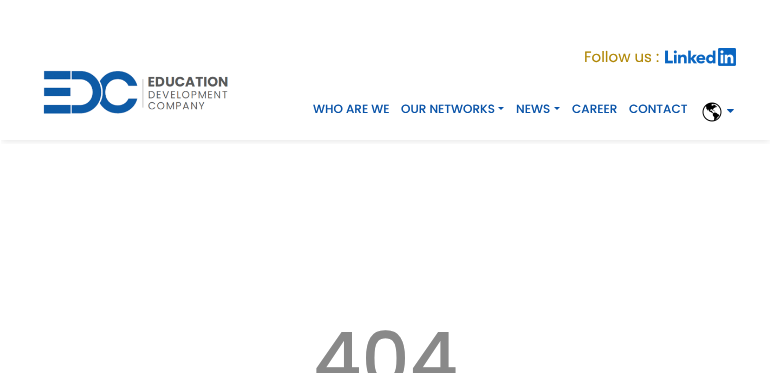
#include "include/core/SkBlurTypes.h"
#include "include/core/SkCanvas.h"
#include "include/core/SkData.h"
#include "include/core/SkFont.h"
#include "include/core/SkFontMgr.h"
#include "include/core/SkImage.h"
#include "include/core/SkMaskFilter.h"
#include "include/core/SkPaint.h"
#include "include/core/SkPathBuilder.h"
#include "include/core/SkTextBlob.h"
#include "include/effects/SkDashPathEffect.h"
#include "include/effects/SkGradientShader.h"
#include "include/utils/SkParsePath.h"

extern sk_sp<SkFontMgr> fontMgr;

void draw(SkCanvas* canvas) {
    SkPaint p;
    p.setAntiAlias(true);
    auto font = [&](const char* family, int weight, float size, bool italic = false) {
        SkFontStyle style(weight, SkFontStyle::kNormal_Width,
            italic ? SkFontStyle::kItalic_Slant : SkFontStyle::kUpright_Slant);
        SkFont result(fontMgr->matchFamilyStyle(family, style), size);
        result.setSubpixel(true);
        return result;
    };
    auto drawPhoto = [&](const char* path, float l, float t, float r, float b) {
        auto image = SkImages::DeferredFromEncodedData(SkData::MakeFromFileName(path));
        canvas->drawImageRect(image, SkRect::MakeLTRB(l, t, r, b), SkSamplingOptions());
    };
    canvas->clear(0xFFFFFFFF);
    canvas->save();
    canvas->clipRect(SkRect::MakeLTRB(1, 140, 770, 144));
    p.setColor(0x1A000000);
    p.setMaskFilter(SkMaskFilter::MakeBlur(kNormal_SkBlurStyle, 3));
    canvas->drawRect(SkRect::MakeLTRB(2, 5, 769, 141), p);
    p.setMaskFilter(nullptr);
    canvas->restore();
    auto font1 = font("Poppins", 400, 15);
    p.setColor(0xFFB18807);
    canvas->drawString("Follow us :", 584, 62, font1, p);
    drawPhoto("media/1.png", 665, 48, 736, 66);
    drawPhoto("media/2.png", 43, 70, 228, 114);
    auto font2 = font("Poppins", 500, 12);
    p.setColor(0xFF0A54A9);
    canvas->drawString("WHO ARE WE", 313, 113, font2, p);
    canvas->drawString("OUR NETWORKS", 401, 113, font2, p);
    canvas->drawPath(SkPathBuilder().moveTo(498, 107).lineTo(504, 107).lineTo(501, 110).close().detach(), p);
    canvas->drawString("NEWS", 516, 113, font2, p);
    canvas->drawPath(SkPathBuilder().moveTo(554, 107).lineTo(560, 107).lineTo(557, 110).close().detach(), p);
    canvas->drawString("CAREER", 572, 113, font2, p);
    canvas->drawString("CONTACT", 629, 113, font2, p);
    drawPhoto("media/3.png", 702, 102, 722, 122);
    drawPhoto("media/4.png", 727, 109, 734, 113);
    auto font3 = font("Poppins", 500, 75);
    p.setColor(0xFF898989);
    canvas->drawString("404", 313, 386, font3, p);
}
